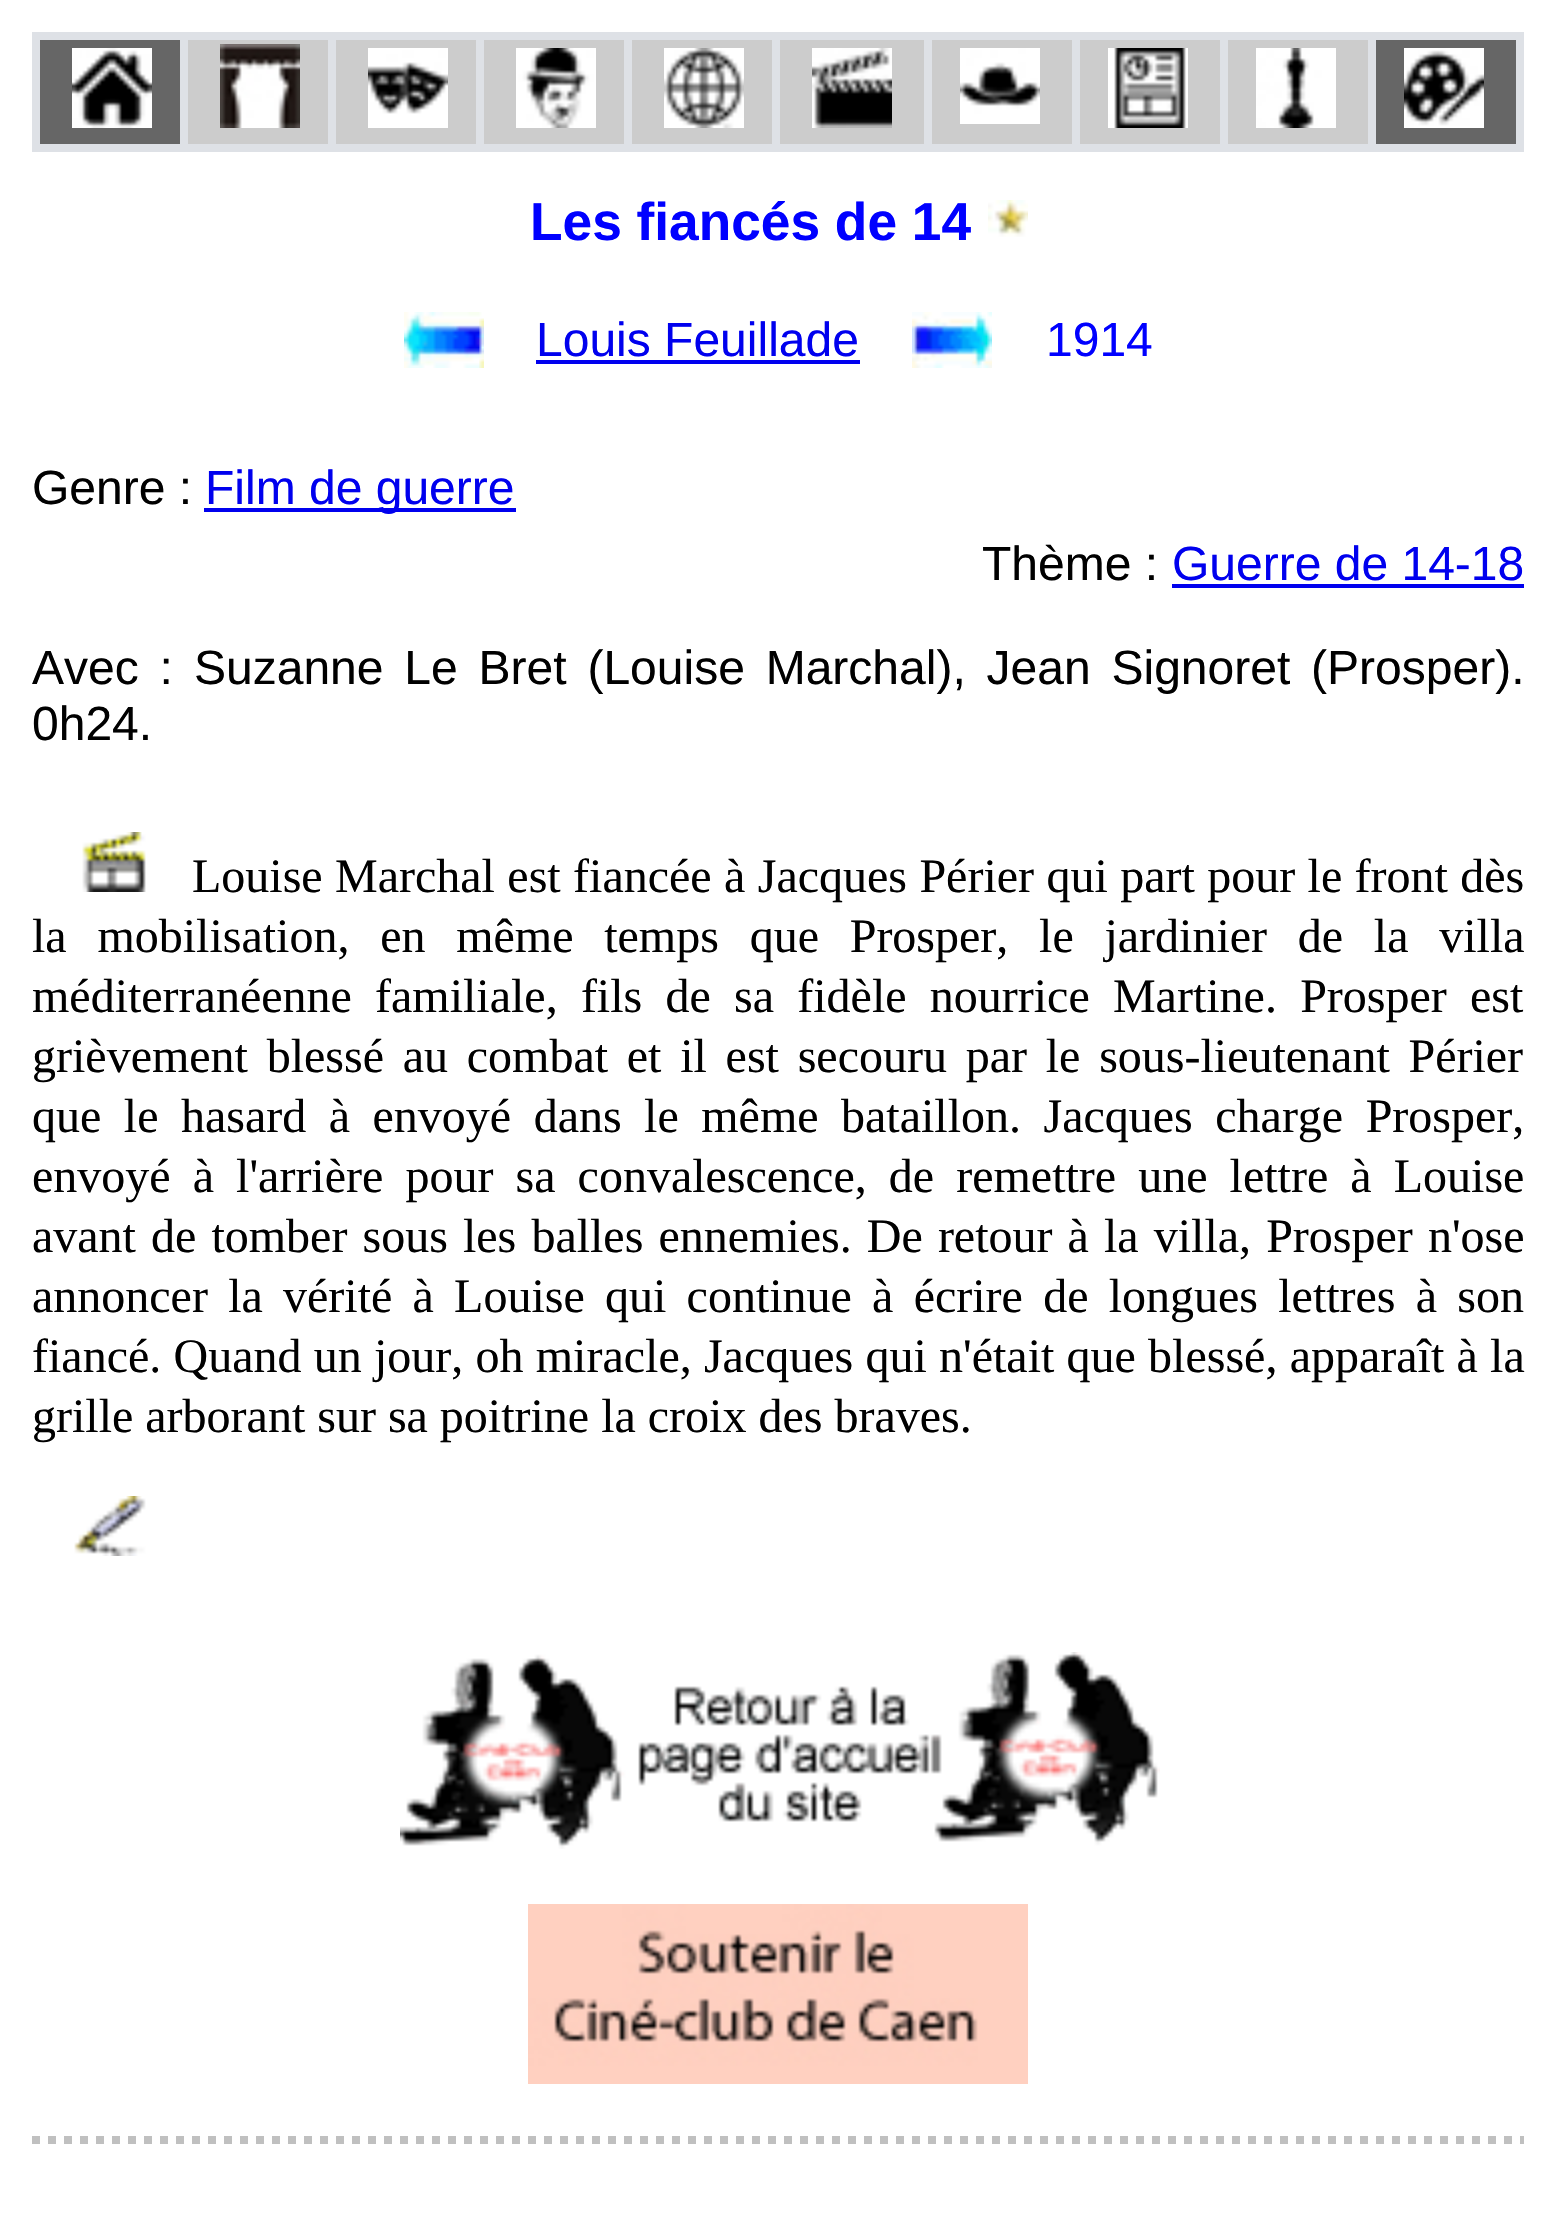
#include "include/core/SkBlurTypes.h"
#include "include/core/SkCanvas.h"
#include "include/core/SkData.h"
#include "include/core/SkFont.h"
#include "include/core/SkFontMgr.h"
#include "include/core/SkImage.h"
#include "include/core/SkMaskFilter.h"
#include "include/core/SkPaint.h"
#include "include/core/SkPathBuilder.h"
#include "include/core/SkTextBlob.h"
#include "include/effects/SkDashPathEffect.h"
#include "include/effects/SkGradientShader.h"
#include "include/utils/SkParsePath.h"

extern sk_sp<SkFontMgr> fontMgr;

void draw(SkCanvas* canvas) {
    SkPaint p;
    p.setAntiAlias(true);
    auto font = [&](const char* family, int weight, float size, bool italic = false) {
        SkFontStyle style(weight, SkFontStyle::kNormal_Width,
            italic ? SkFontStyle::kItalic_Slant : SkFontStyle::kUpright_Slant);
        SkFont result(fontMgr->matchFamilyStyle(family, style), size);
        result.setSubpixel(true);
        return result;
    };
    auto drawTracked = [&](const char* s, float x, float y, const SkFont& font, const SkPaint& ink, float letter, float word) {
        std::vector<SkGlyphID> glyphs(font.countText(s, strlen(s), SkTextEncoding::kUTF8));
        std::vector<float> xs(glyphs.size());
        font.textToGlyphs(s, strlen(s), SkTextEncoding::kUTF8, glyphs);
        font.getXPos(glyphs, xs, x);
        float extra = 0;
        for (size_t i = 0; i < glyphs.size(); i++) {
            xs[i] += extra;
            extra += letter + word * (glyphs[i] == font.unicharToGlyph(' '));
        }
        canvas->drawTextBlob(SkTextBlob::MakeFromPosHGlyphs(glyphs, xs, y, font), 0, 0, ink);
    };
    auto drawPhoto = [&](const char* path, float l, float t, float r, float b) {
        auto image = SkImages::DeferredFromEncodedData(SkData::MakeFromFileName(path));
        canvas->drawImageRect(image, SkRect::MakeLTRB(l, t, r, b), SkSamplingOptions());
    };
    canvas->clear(0xFFFFFFFF);
    p.setColor(0xFFDEE1E6);
    canvas->drawRect(SkRect::MakeLTRB(32, 32, 1524, 152), p);
    p.setColor(0xFF666666);
    canvas->drawRect(SkRect::MakeLTRB(40, 40, 180, 144), p);
    drawPhoto("media/1.png", 72, 48, 152, 128);
    p.setColor(0xFFCCCCCC);
    canvas->drawRect(SkRect::MakeLTRB(188, 40, 328, 144), p);
    drawPhoto("media/2.png", 220, 44, 300, 128);
    canvas->drawRect(SkRect::MakeLTRB(336, 40, 476, 144), p);
    drawPhoto("media/3.png", 368, 48, 448, 128);
    canvas->drawRect(SkRect::MakeLTRB(484, 40, 624, 144), p);
    drawPhoto("media/4.png", 516, 48, 596, 128);
    canvas->drawRect(SkRect::MakeLTRB(632, 40, 772, 144), p);
    drawPhoto("media/5.png", 664, 48, 744, 128);
    canvas->drawRect(SkRect::MakeLTRB(780, 40, 924, 144), p);
    drawPhoto("media/6.png", 812, 48, 892, 128);
    canvas->drawRect(SkRect::MakeLTRB(932, 40, 1072, 144), p);
    drawPhoto("media/7.png", 960, 48, 1040, 124);
    canvas->drawRect(SkRect::MakeLTRB(1080, 40, 1220, 144), p);
    drawPhoto("media/8.png", 1108, 48, 1188, 128);
    canvas->drawRect(SkRect::MakeLTRB(1228, 40, 1368, 144), p);
    drawPhoto("media/9.png", 1256, 48, 1336, 128);
    p.setColor(0xFF666666);
    canvas->drawRect(SkRect::MakeLTRB(1376, 40, 1516, 144), p);
    drawPhoto("media/10.png", 1404, 48, 1484, 128);
    auto font1 = font("Liberation Sans", 700, 53.25f);
    p.setColor(0xFF0000FF);
    canvas->drawString("Les fiancés de 14", 530, 240, font1, p);
    drawPhoto("media/11.png", 988, 200, 1028, 237);
    drawPhoto("media/12.png", 404, 312, 484, 368);
    auto font2 = font("Liberation Sans", 400, 48);
    p.setColor(0xFF0000EE);
    canvas->drawString("Louis Feuillade", 536, 356, font2, p);
    canvas->drawRect(SkRect::MakeLTRB(536, 360, 860, 364), p);
    drawPhoto("media/13.png", 912, 312, 992, 368);
    p.setColor(0xFF0000FF);
    canvas->drawString("1914", 1046, 356, font2, p);
    p.setColor(0xFF000000);
    canvas->drawString("Genre :", 32, 504, font2, p);
    p.setColor(0xFF0000EE);
    canvas->drawRect(SkRect::MakeLTRB(204, 508, 516, 512), p);
    canvas->drawString("Film de guerre", 205, 504, font2, p);
    p.setColor(0xFF000000);
    canvas->drawString("Thème :", 982, 580, font2, p);
    p.setColor(0xFF0000EE);
    canvas->drawString("Guerre de 14-18", 1172, 580, font2, p);
    canvas->drawRect(SkRect::MakeLTRB(1172, 584, 1524, 588), p);
    p.setColor(0xFF000000);
    drawTracked("Avec :", 32, 684, font2, p, 0, 7.5f);
    drawTracked("Suzanne Le Bret (Louise Marchal), Jean Signoret (Prosper).", 194, 684, font2, p, 0, 7.5f);
    canvas->drawString("0h24.", 32, 740, font2, p);
    drawPhoto("media/14.png", 82, 832, 146, 892);
    auto font3 = font("Liberation Serif", 400, 48);
    drawTracked("Louise Marchal est fiancée à Jacques Périer qui part pour le front dès", 192, 892, font3, p, 0, 0.4f);
    drawTracked("la mobilisation, en même temps que Prosper, le jardinier de la villa", 32, 952, font3, p, 0, 18.75f);
    drawTracked("méditerranéenne familiale, fils de sa fidèle nourrice Martine. Prosper est", 32, 1012, font3, p, 0, 11.25f);
    drawTracked("grièvement blessé au combat et il est secouru par le sous-lieutenant Périer", 32, 1072, font3, p, 0, 6.75f);
    drawTracked("que le hasard à envoyé dans le même bataillon. Jacques charge Prosper,", 32, 1132, font3, p, 0, 10.5f);
    drawTracked("envoyé à l'arrière pour sa convalescence, de remettre une lettre à Louise", 32, 1192, font3, p, 0, 10.1f);
    drawTracked("avant de tomber sous les balles ennemies. De retour à la villa, Prosper n'ose", 32, 1252, font3, p, 0, 3.1f);
    drawTracked("annoncer la vérité à Louise qui continue à écrire de longues lettres à son", 32, 1312, font3, p, 0, 8.25f);
    drawTracked("fiancé. Quand un jour, oh miracle, Jacques qui n'était que blessé, apparaît à la", 32, 1372, font3, p, 0, 0.25f);
    canvas->drawString("grille arborant sur sa poitrine la croix des braves.", 32, 1432, font3, p);
    drawPhoto("media/15.png", 74, 1496, 146, 1556);
    drawPhoto("media/16.png", 400, 1652, 1160, 1849);
    drawPhoto("media/17.png", 528, 1904, 1028, 2084);
    p.setStyle(SkPaint::kStroke_Style);
    p.setStrokeWidth(8);
    p.setColor(0xFFC0C0C0);
    p.setPathEffect(SkDashPathEffect::Make({{8, 8}}, 0));
    canvas->drawPath(SkPathBuilder().moveTo(32, 2140).lineTo(1524, 2140).detach(), p);
    p.setPathEffect(nullptr);
}
